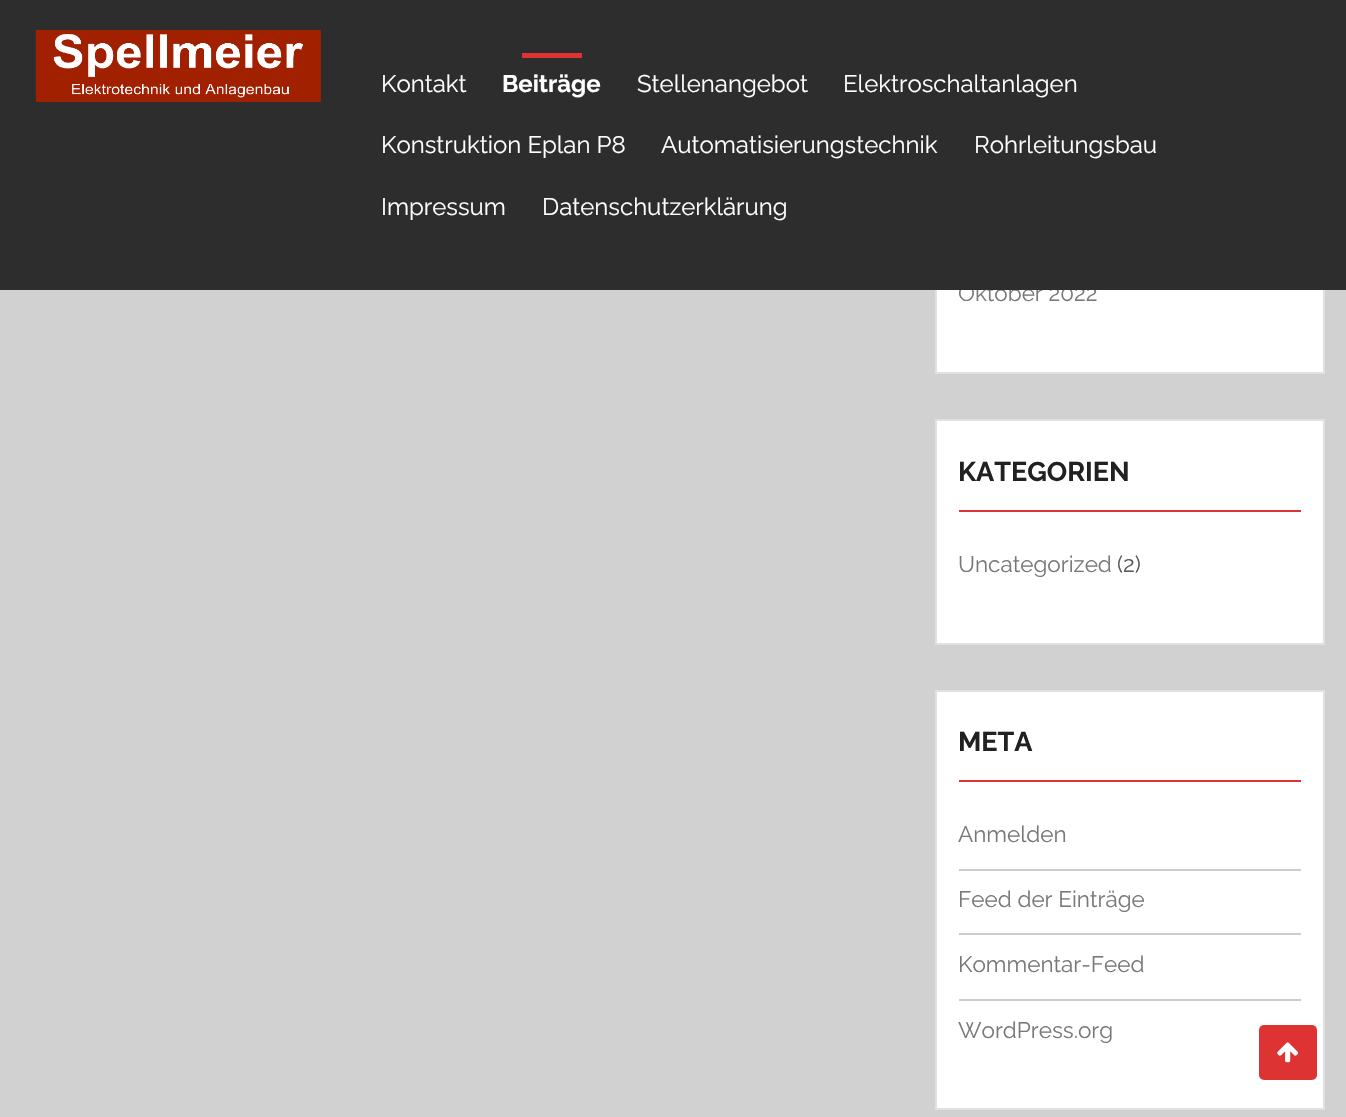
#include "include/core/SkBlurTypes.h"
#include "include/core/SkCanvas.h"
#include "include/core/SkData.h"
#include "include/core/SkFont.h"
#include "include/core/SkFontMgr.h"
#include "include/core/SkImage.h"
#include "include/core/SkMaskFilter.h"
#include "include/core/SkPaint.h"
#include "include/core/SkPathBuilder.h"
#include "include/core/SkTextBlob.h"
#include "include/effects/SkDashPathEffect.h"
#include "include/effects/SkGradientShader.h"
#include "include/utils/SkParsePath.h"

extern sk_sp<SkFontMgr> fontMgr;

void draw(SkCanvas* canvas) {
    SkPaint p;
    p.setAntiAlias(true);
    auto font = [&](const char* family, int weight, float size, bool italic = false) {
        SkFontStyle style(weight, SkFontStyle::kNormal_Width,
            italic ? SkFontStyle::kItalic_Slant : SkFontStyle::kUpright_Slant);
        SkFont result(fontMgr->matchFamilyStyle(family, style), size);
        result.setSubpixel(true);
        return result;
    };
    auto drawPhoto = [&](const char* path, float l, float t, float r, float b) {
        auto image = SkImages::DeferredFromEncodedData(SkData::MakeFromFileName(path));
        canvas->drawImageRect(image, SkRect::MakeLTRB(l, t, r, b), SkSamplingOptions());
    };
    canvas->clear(0xFFD1D1D1);
    p.setColor(0xFFFFFFFF);
    canvas->drawRect(SkRect::MakeLTRB(937, 290, 1323, 372), p);
    p.setStyle(SkPaint::kStroke_Style);
    p.setStrokeWidth(2);
    p.setColor(0xFFE1E1E1);
    canvas->drawRect(SkRect::MakeLTRB(936, 85, 1324, 373), p);
    auto font1 = font("Raleway", 400, 22.5f);
    p.setStyle(SkPaint::kFill_Style);
    p.setColor(0xFF787878);
    canvas->drawString("Oktober 2022", 958, 301, font1, p);
    p.setColor(0xFF2D2D2D);
    canvas->drawRect(SkRect::MakeLTRB(0, 0, 1346, 290), p);
    drawPhoto("media/1.png", 35, 30, 321, 102);
    auto font2 = font("Raleway", 400, 24);
    p.setColor(0xFFFFFFFF);
    canvas->drawString("Kontakt", 381, 92, font2, p);
    p.setColor(0xFFDD3333);
    canvas->drawRect(SkRect::MakeLTRB(522, 53, 582, 58), p);
    auto font3 = font("Raleway", 700, 24);
    p.setColor(0xFFFFFFFF);
    canvas->drawString("Beiträge", 502, 92, font3, p);
    {
        const struct { const char* s; float x, y; } items[] = {
            {"Stellenangebot", 637, 92},
            {"Elektroschaltanlagen", 843, 92},
            {"Konstruktion Eplan P8", 381, 153},
            {"Automatisierungstechnik", 661, 153},
            {"Rohrleitungsbau", 974, 153},
            {"Impressum", 381, 215},
            {"Datenschutzerklärung", 542, 215},
        };
        for (auto [s, x, y] : items) {
            canvas->drawString(s, x, y, font2, p);
        }
    }
    canvas->drawRect(SkRect::MakeLTRB(936, 420, 1324, 644), p);
    p.setStyle(SkPaint::kStroke_Style);
    p.setColor(0xFFE1E1E1);
    canvas->drawRect(SkRect::MakeLTRB(936, 420, 1324, 644), p);
    p.setStyle(SkPaint::kFill_Style);
    p.setColor(0xFFDD3333);
    canvas->drawRect(SkRect::MakeLTRB(959, 510, 1301, 512), p);
    auto font4 = font("Raleway", 700, 27);
    p.setColor(0xFF212121);
    canvas->drawString("KATEGORIEN", 958, 481, font4, p);
    p.setColor(0xFF787878);
    canvas->drawString("Uncategorized", 958, 572, font1, p);
    p.setColor(0xFF5A5A5A);
    canvas->drawString("(2)", 1117, 572, font1, p);
    p.setColor(0xFFFFFFFF);
    canvas->drawRect(SkRect::MakeLTRB(936, 691, 1324, 1109), p);
    p.setStyle(SkPaint::kStroke_Style);
    p.setColor(0xFFE1E1E1);
    canvas->drawRect(SkRect::MakeLTRB(936, 691, 1324, 1109), p);
    p.setStyle(SkPaint::kFill_Style);
    p.setColor(0xFFDD3333);
    canvas->drawRect(SkRect::MakeLTRB(959, 780, 1301, 782), p);
    p.setColor(0xFF212121);
    canvas->drawString("META", 958, 751, font4, p);
    p.setColor(0xFF787878);
    canvas->drawString("Anmelden", 958, 842, font1, p);
    p.setColor(0xFFCCCCCC);
    canvas->drawRect(SkRect::MakeLTRB(959, 869, 1301, 871), p);
    p.setColor(0xFF787878);
    canvas->drawString("Feed der Einträge", 958, 907, font1, p);
    p.setColor(0xFFCCCCCC);
    canvas->drawRect(SkRect::MakeLTRB(959, 933, 1301, 935), p);
    p.setColor(0xFF787878);
    canvas->drawString("Kommentar-Feed", 958, 972, font1, p);
    p.setColor(0xFFCCCCCC);
    canvas->drawRect(SkRect::MakeLTRB(959, 999, 1301, 1001), p);
    p.setColor(0xFF787878);
    canvas->drawString("WordPress.org", 958, 1038, font1, p);
    p.setColor(0xFFDD3333);
    canvas->drawRoundRect(SkRect::MakeLTRB(1259, 1025, 1317, 1080), 5, 5, p);
    drawPhoto("media/2.png", 1277, 1042, 1298, 1063);
}
